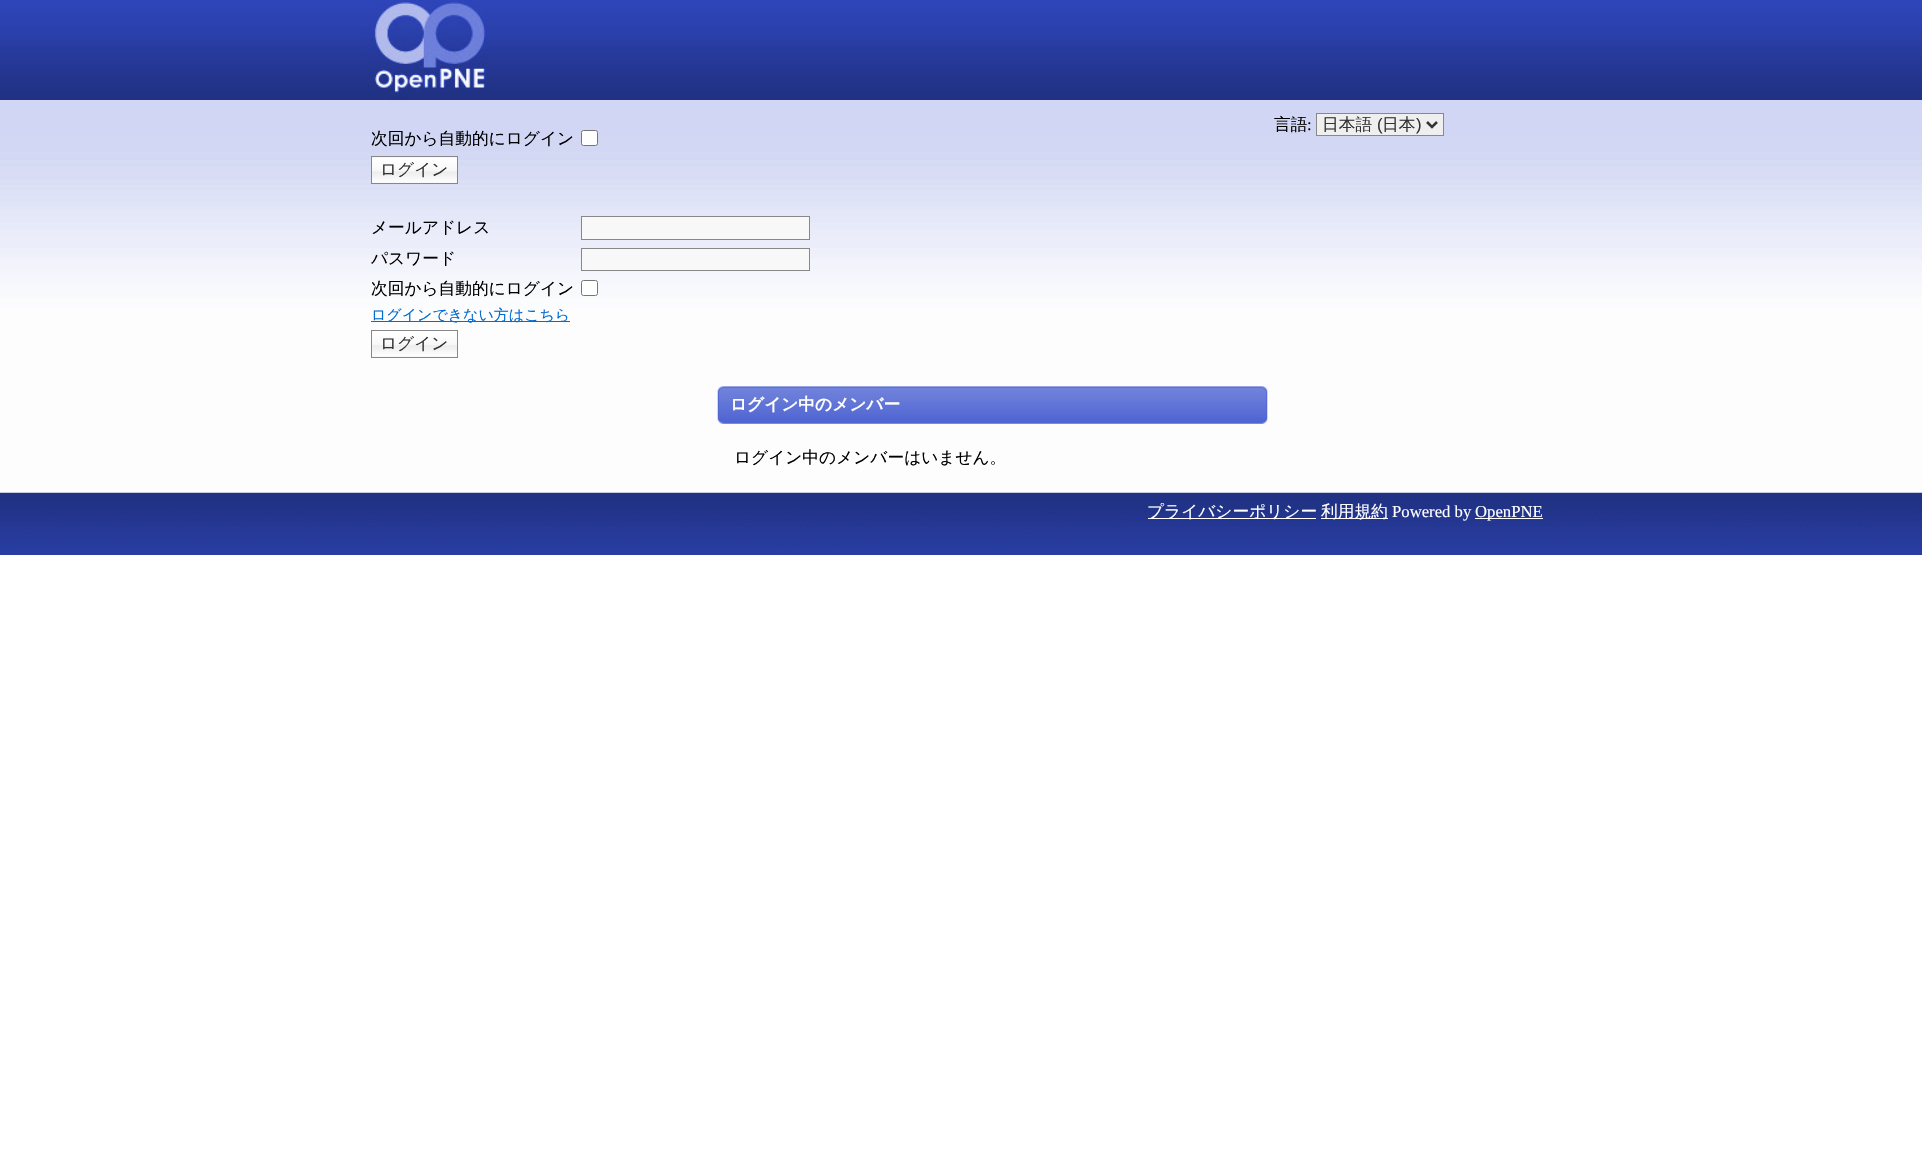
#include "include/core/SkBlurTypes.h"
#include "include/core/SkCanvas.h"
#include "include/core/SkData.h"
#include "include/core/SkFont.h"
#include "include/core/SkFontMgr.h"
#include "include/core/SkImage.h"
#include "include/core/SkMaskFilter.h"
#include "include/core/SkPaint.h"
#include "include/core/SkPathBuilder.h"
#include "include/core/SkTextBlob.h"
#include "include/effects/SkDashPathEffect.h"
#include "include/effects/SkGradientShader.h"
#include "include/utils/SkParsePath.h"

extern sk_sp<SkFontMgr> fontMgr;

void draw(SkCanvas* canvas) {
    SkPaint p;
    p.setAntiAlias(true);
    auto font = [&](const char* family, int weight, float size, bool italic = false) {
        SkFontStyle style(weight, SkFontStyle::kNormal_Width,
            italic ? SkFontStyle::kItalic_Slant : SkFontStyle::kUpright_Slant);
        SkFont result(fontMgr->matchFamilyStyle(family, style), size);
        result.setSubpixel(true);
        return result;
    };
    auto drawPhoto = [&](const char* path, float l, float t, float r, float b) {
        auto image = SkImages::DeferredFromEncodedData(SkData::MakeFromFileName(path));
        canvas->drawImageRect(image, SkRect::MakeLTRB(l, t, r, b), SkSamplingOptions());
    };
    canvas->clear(0xFFFFFFFF);
    drawPhoto("media/1.png", 0, 0, 1922, 100);
    drawPhoto("media/2.png", 367, 0, 488, 100);
    drawPhoto("media/7.png", 0, 492, 1922, 555);
    drawPhoto("media/3.png", 0, 100, 1922, 493);
    auto font1 = font("WenQuanYi Zen Hei", 500, 16.7f);
    p.setColor(0xFF000000);
    canvas->drawString("言語", 1274, 130, font1, p);
    auto font2 = font("Liberation Serif", 400, 16.7f);
    canvas->drawString(":", 1307, 130, font2, p);
    p.setColor(0xFFEFEFEF);
    canvas->drawRect(SkRect::MakeLTRB(1316.5f, 113.5f, 1443.5f, 135.5f), p);
    p.setStyle(SkPaint::kStroke_Style);
    p.setStrokeWidth(1);
    p.setColor(0xFF888888);
    canvas->drawRect(SkRect::MakeLTRB(1316.5f, 113.5f, 1443.5f, 135.5f), p);
    p.setStrokeWidth(2.5f);
    p.setColor(0xFF333333);
    canvas->drawPath(SkPathBuilder().moveTo(1427, 122).lineTo(1432, 127).lineTo(1437, 122).detach(), p);
    p.setStyle(SkPaint::kFill_Style);
    canvas->drawString("日本語", 1322, 130, font1, p);
    auto font3 = font("Liberation Sans", 400, 16.7f);
    canvas->drawString("(", 1377, 130, font3, p);
    canvas->drawString("日本", 1382, 130, font1, p);
    canvas->drawString(")", 1416, 130, font3, p);
    p.setColor(0xFF000000);
    canvas->drawString("次回から自動的にログイン", 371, 144, font1, p);
    p.setColor(0xFFFFFFFF);
    canvas->drawRoundRect(SkRect::MakeLTRB(581.5f, 130.5f, 597.5f, 145.5f), 2, 2, p);
    p.setStyle(SkPaint::kStroke_Style);
    p.setStrokeWidth(1);
    p.setColor(0xFF767676);
    canvas->drawRoundRect(SkRect::MakeLTRB(581.5f, 130.5f, 597.5f, 145.5f), 2, 2, p);
    p.setStyle(SkPaint::kFill_Style);
    p.setColor(0xFFF8F8F8);
    canvas->drawRect(SkRect::MakeLTRB(372, 157, 457, 183), p);
    drawPhoto("media/4.png", 372, 158, 457, 182);
    p.setStyle(SkPaint::kStroke_Style);
    p.setColor(0xFF888888);
    canvas->drawRect(SkRect::MakeLTRB(371.5f, 156.5f, 457.5f, 183.5f), p);
    p.setStyle(SkPaint::kFill_Style);
    p.setColor(0xFF333333);
    canvas->drawString("ログイン", 380, 175, font1, p);
    p.setColor(0xFF000000);
    canvas->drawString("メールアドレス", 371, 233, font1, p);
    p.setColor(0xFFF8F8F8);
    canvas->drawRect(SkRect::MakeLTRB(581.5f, 216.5f, 809.5f, 239.5f), p);
    p.setStyle(SkPaint::kStroke_Style);
    p.setColor(0xFF888888);
    canvas->drawRect(SkRect::MakeLTRB(581.5f, 216.5f, 809.5f, 239.5f), p);
    p.setStyle(SkPaint::kFill_Style);
    p.setColor(0xFF000000);
    canvas->drawString("パスワード", 371, 264, font1, p);
    p.setColor(0xFFF8F8F8);
    canvas->drawRect(SkRect::MakeLTRB(581.5f, 248.5f, 809.5f, 270.5f), p);
    p.setStyle(SkPaint::kStroke_Style);
    p.setColor(0xFF888888);
    canvas->drawRect(SkRect::MakeLTRB(581.5f, 248.5f, 809.5f, 270.5f), p);
    p.setStyle(SkPaint::kFill_Style);
    p.setColor(0xFF000000);
    canvas->drawString("次回から自動的にログイン", 371, 294, font1, p);
    p.setColor(0xFFFFFFFF);
    canvas->drawRoundRect(SkRect::MakeLTRB(581.5f, 280.5f, 597.5f, 295.5f), 2, 2, p);
    p.setStyle(SkPaint::kStroke_Style);
    p.setColor(0xFF767676);
    canvas->drawRoundRect(SkRect::MakeLTRB(581.5f, 280.5f, 597.5f, 295.5f), 2, 2, p);
    p.setStyle(SkPaint::kFill_Style);
    p.setColor(0xFF026CD1);
    canvas->drawRect(SkRect::MakeLTRB(371, 321, 570, 322), p);
    auto font4 = font("WenQuanYi Zen Hei", 500, 15);
    canvas->drawString("ログインできない方はこちら", 371, 320, font4, p);
    p.setColor(0xFFF8F8F8);
    canvas->drawRect(SkRect::MakeLTRB(372, 331, 457, 357), p);
    drawPhoto("media/5.png", 372, 331, 457, 356);
    p.setStyle(SkPaint::kStroke_Style);
    p.setColor(0xFF888888);
    canvas->drawRect(SkRect::MakeLTRB(371.5f, 330.5f, 457.5f, 357.5f), p);
    p.setStyle(SkPaint::kFill_Style);
    p.setColor(0xFF333333);
    canvas->drawString("ログイン", 380, 349, font1, p);
    drawPhoto("media/6.png", 717, 386, 1268, 424);
    auto font5 = font("WenQuanYi Zen Hei", 700, 16.7f);
    p.setColor(0xFFFFFFFF);
    canvas->drawString("ログイン中のメンバー", 730, 410, font5, p);
    p.setColor(0xFF000000);
    canvas->drawString("ログイン中のメンバーはいません。", 734, 463, font1, p);
    p.setColor(0xFFFFFFFF);
    canvas->drawRect(SkRect::MakeLTRB(1148, 518, 1316, 519), p);
    canvas->drawString("プライバシーポリシー", 1147, 517, font1, p);
    canvas->drawRect(SkRect::MakeLTRB(1321, 518, 1388, 519), p);
    canvas->drawString("利用規約", 1321, 517, font1, p);
    canvas->drawString("Powered by", 1392, 517, font2, p);
    canvas->drawRect(SkRect::MakeLTRB(1475, 518, 1543, 519), p);
    canvas->drawString("OpenPNE", 1475, 517, font2, p);
}
